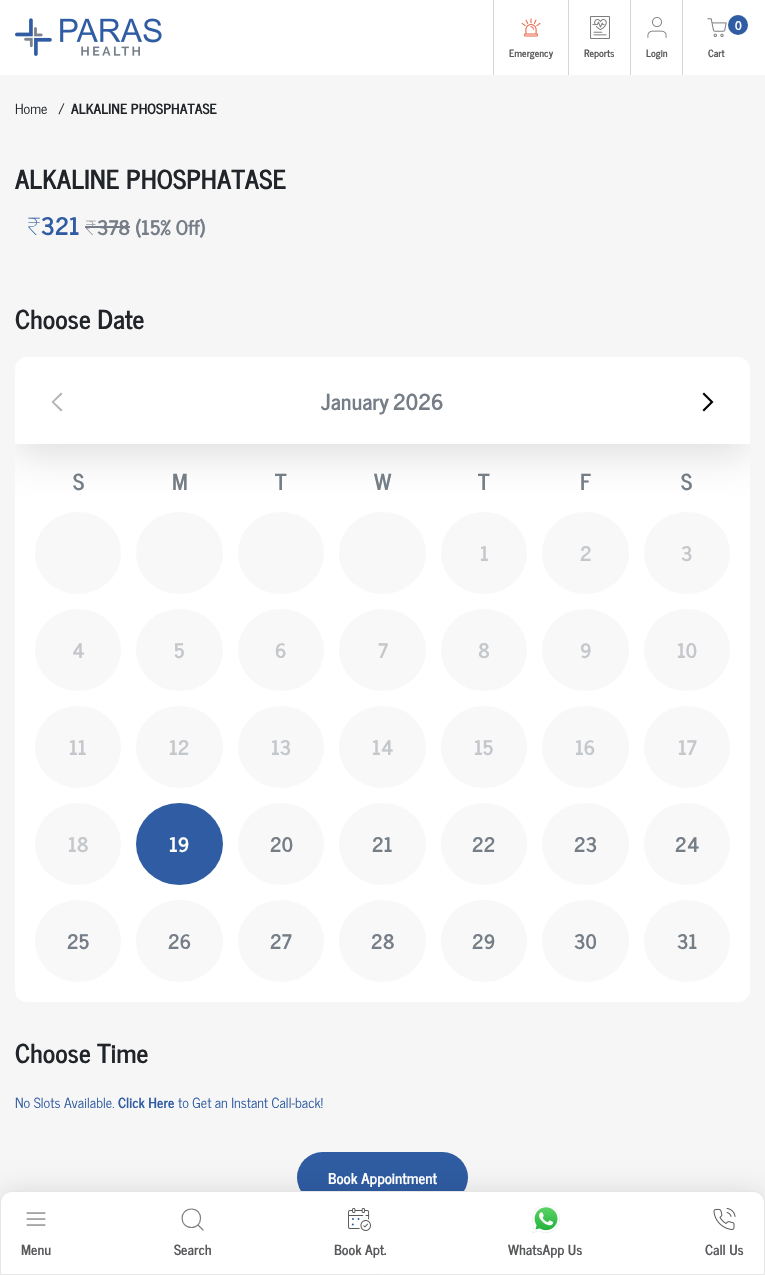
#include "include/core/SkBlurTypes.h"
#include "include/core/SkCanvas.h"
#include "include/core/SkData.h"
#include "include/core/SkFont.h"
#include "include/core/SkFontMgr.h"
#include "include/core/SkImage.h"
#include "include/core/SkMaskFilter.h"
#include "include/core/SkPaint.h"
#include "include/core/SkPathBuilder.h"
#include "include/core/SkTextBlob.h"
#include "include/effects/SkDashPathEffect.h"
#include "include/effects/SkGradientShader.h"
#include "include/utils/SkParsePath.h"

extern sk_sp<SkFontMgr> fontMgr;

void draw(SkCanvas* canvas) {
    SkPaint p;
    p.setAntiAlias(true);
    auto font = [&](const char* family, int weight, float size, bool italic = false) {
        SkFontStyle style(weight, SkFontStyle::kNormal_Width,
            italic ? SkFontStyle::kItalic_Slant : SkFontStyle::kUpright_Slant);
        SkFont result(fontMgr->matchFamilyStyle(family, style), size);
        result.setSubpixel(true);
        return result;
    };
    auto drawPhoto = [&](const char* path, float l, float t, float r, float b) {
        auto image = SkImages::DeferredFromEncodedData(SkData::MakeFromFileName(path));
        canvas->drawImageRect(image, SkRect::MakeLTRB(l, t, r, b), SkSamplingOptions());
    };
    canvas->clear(0xFFFFFFFF);
    drawPhoto("media/1.png", 15, 18, 162, 56);
    p.setColor(0xFFDCD4D4);
    canvas->drawRect(SkRect::MakeLTRB(493, 0, 494, 75), p);
    drawPhoto("media/2.png", 521, 18, 541, 37);
    auto font1 = font("News Cycle", 700, 10);
    p.setColor(0xFF58595B);
    canvas->drawString("Emergency", 509, 57, font1, p);
    p.setColor(0xFFDCD4D4);
    canvas->drawRect(SkRect::MakeLTRB(568, 0, 569, 75), p);
    drawPhoto("media/3.png", 590, 16, 610, 39);
    p.setColor(0xFF58595B);
    canvas->drawString("Reports", 584, 57, font1, p);
    p.setColor(0xFFDCD4D4);
    canvas->drawRect(SkRect::MakeLTRB(630, 0, 631, 75), p);
    drawPhoto("media/4.png", 647, 17, 667, 38);
    p.setColor(0xFF58595B);
    canvas->drawString("Login", 646, 57, font1, p);
    p.setColor(0xFFDCD4D4);
    canvas->drawRect(SkRect::MakeLTRB(682, 0, 683, 75), p);
    drawPhoto("media/5.png", 707, 18, 727, 38);
    p.setColor(0xFF2F5CA2);
    canvas->drawCircle(738, 25, 10, p);
    auto font2 = font("News Cycle", 700, 12);
    p.setColor(0xFFFFFFFF);
    canvas->drawString("0", 735, 30, font2, p);
    p.setColor(0xFF58595B);
    canvas->drawString("Cart", 708, 57, font1, p);
    p.setColor(0xFFF6F6F6);
    canvas->drawRect(SkRect::MakeLTRB(0, 75, 765, 1203), p);
    p.setColor(0xFF2F5CA2);
    canvas->drawRoundRect(SkRect::MakeLTRB(297, 1152, 468, 1203), 25.5f, 25.5f, p);
    p.setColor(0x24000000);
    p.setMaskFilter(SkMaskFilter::MakeBlur(kNormal_SkBlurStyle, 15));
    canvas->drawRoundRect(SkRect::MakeLTRB(0, 1195, 765, 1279), 12, 12, p);
    p.setMaskFilter(nullptr);
    p.setColor(0xFFFFFFFF);
    canvas->drawPath(SkPathBuilder().moveTo(12, 1191.5f).lineTo(753, 1191.5f).cubicTo(759.5f, 1191.5f, 764.5f, 1196.5f, 764.5f, 1203).lineTo(764.5f, 1274.5f).lineTo(0.5f, 1274.5f).lineTo(0.5f, 1203).cubicTo(0.5f, 1196.5f, 5.5f, 1191.5f, 12, 1191.5f).close().detach(), p);
    p.setStyle(SkPaint::kStroke_Style);
    p.setStrokeWidth(1);
    p.setColor(0xFFE6E6E6);
    canvas->drawPath(SkPathBuilder().moveTo(12, 1191.5f).lineTo(753, 1191.5f).cubicTo(759.5f, 1191.5f, 764.5f, 1196.5f, 764.5f, 1203).lineTo(764.5f, 1274.5f).lineTo(0.5f, 1274.5f).lineTo(0.5f, 1203).cubicTo(0.5f, 1196.5f, 5.5f, 1191.5f, 12, 1191.5f).close().detach(), p);
    drawPhoto("media/6.png", 26, 1212, 46, 1226);
    auto font3 = font("News Cycle", 700, 14);
    p.setStyle(SkPaint::kFill_Style);
    p.setColor(0xFF58595B);
    canvas->drawString("Menu", 21, 1255, font3, p);
    p.setStyle(SkPaint::kStroke_Style);
    p.setStrokeWidth(1.2f);
    p.setStrokeCap(SkPaint::kRound_Cap);
    p.setStrokeJoin(SkPaint::kRound_Join);
    p.setColor(0xFF7D7D7D);
    canvas->drawPath(SkPathBuilder().moveTo(191.5f, 1227.5f).cubicTo(203.5f, 1227.5f, 203.5f, 1209, 191.5f, 1209).cubicTo(179, 1209, 179, 1227.5f, 191.5f, 1227.5f).close().moveTo(203, 1230).lineTo(198, 1225).detach(), p);
    p.setStyle(SkPaint::kFill_Style);
    p.setColor(0xFF58595B);
    canvas->drawString("Search", 174, 1255, font3, p);
    drawPhoto("media/7.png", 348, 1208, 371, 1231);
    canvas->drawString("Book Apt.", 334, 1255, font3, p);
    drawPhoto("media/8.png", 532, 1205, 560, 1233);
    canvas->drawString("WhatsApp Us", 508, 1255, font3, p);
    drawPhoto("media/9.png", 713, 1208, 736, 1230);
    canvas->drawString("Call Us", 705, 1255, font3, p);
    auto font4 = font("News Cycle", 400, 14);
    p.setColor(0xFF212529);
    canvas->drawString("Home", 15, 114, font4, p);
    canvas->drawString("/", 58, 114, font4, p);
    canvas->drawString("ALKALINE PHOSPHATASE", 71, 114, font3, p);
    auto font5 = font("News Cycle", 700, 26);
    canvas->drawString("ALKALINE PHOSPHATASE", 15, 189, font5, p);
    auto font6 = font("Noto Sans", 100, 24);
    p.setColor(0xFF2F5CA2);
    canvas->drawString("₹", 27, 235, font6, p);
    auto font7 = font("News Cycle", 700, 24);
    canvas->drawString("321", 41, 235, font7, p);
    auto font8 = font("Noto Sans", 100, 20);
    p.setColor(0xFF757D87);
    canvas->drawString("₹", 85, 235, font8, p);
    canvas->drawRect(SkRect::MakeLTRB(85, 226, 130, 228), p);
    auto font9 = font("News Cycle", 700, 20);
    canvas->drawString("378 (15% Off)", 97, 235, font9, p);
    p.setColor(0xFF212529);
    canvas->drawString("Choose Date", 15, 329, font5, p);
    p.setColor(0xFFFFFFFF);
    canvas->drawRoundRect(SkRect::MakeLTRB(15, 357, 750, 1002), 12, 12, p);
    canvas->save();
    canvas->clipPath(SkPathBuilder().moveTo(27, 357).lineTo(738, 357).cubicTo(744.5f, 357, 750, 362.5f, 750, 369).lineTo(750, 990).cubicTo(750, 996.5f, 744.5f, 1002, 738, 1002).lineTo(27, 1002).cubicTo(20.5f, 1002, 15, 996.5f, 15, 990).lineTo(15, 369).cubicTo(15, 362.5f, 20.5f, 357, 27, 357).close().detach(), true);
    canvas->clipRect(SkRect::MakeLTRB(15, 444, 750, 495));
    p.setColor(0xFFDDDDDD);
    p.setMaskFilter(SkMaskFilter::MakeBlur(kNormal_SkBlurStyle, 20));
    canvas->drawRect(SkRect::MakeLTRB(15, 367, 750, 454), p);
    p.setMaskFilter(nullptr);
    canvas->restore();
    p.setColor(0xFFB3B3B3);
    canvas->drawPath(SkPathBuilder().moveTo(61, 392.5f).lineTo(51.5f, 402).lineTo(61, 411.5f).lineTo(62.5f, 410).lineTo(54, 402).lineTo(62.5f, 394).close().detach(), p);
    auto font10 = font("News Cycle", 700, 22);
    p.setColor(0xFF757D87);
    canvas->drawString("January", 321, 410, font10, p);
    canvas->drawString("2026", 393, 410, font10, p);
    p.setColor(0xFF000000);
    canvas->drawPath(SkPathBuilder().moveTo(704, 411.5f).lineTo(713.5f, 402).lineTo(704, 392.5f).lineTo(702.5f, 394).lineTo(710.5f, 402).lineTo(702.5f, 410).close().detach(), p);
    p.setColor(0xFF757D87);
    {
        const struct { const char* s; float x, y; } items[] = {
            {"S", 73, 490},
            {"M", 172, 490},
            {"T", 275, 490},
            {"W", 374, 490},
            {"T", 478, 490},
            {"F", 580, 490},
            {"S", 681, 490},
        };
        for (auto [s, x, y] : items) {
            canvas->drawString(s, x, y, font10, p);
        }
    }
    p.setColor(0xFFF8F8F8);
    canvas->drawOval(SkRect::MakeLTRB(35, 512, 121, 594), p);
    canvas->drawOval(SkRect::MakeLTRB(136, 512, 223, 594), p);
    canvas->drawOval(SkRect::MakeLTRB(238, 512, 324, 594), p);
    canvas->drawOval(SkRect::MakeLTRB(339, 512, 426, 594), p);
    canvas->drawOval(SkRect::MakeLTRB(441, 512, 527, 594), p);
    p.setColor(0xFFC4C7CB);
    canvas->drawString("1", 480, 561, font9, p);
    p.setColor(0xFFF8F8F8);
    canvas->drawOval(SkRect::MakeLTRB(542, 512, 629, 594), p);
    p.setColor(0xFFC4C7CB);
    canvas->drawString("2", 580, 561, font9, p);
    p.setColor(0xFFF8F8F8);
    canvas->drawOval(SkRect::MakeLTRB(644, 512, 730, 594), p);
    p.setColor(0xFFC4C7CB);
    canvas->drawString("3", 681, 561, font9, p);
    p.setColor(0xFFF8F8F8);
    canvas->drawOval(SkRect::MakeLTRB(35, 609, 121, 691), p);
    p.setColor(0xFFC4C7CB);
    canvas->drawString("4", 72, 658, font9, p);
    p.setColor(0xFFF8F8F8);
    canvas->drawOval(SkRect::MakeLTRB(136, 609, 223, 691), p);
    p.setColor(0xFFC4C7CB);
    canvas->drawString("5", 174, 658, font9, p);
    p.setColor(0xFFF8F8F8);
    canvas->drawOval(SkRect::MakeLTRB(238, 609, 324, 691), p);
    p.setColor(0xFFC4C7CB);
    canvas->drawString("6", 275, 658, font9, p);
    p.setColor(0xFFF8F8F8);
    canvas->drawOval(SkRect::MakeLTRB(339, 609, 426, 691), p);
    p.setColor(0xFFC4C7CB);
    canvas->drawString("7", 378, 658, font9, p);
    p.setColor(0xFFF8F8F8);
    canvas->drawOval(SkRect::MakeLTRB(441, 609, 527, 691), p);
    p.setColor(0xFFC4C7CB);
    canvas->drawString("8", 478, 658, font9, p);
    p.setColor(0xFFF8F8F8);
    canvas->drawOval(SkRect::MakeLTRB(542, 609, 629, 691), p);
    p.setColor(0xFFC4C7CB);
    canvas->drawString("9", 580, 658, font9, p);
    p.setColor(0xFFF8F8F8);
    canvas->drawOval(SkRect::MakeLTRB(644, 609, 730, 691), p);
    p.setColor(0xFFC4C7CB);
    canvas->drawString("10", 677, 658, font9, p);
    p.setColor(0xFFF8F8F8);
    canvas->drawOval(SkRect::MakeLTRB(35, 706, 121, 788), p);
    p.setColor(0xFFC4C7CB);
    canvas->drawString("11", 69, 755, font9, p);
    p.setColor(0xFFF8F8F8);
    canvas->drawOval(SkRect::MakeLTRB(136, 706, 223, 788), p);
    p.setColor(0xFFC4C7CB);
    canvas->drawString("12", 169, 755, font9, p);
    p.setColor(0xFFF8F8F8);
    canvas->drawOval(SkRect::MakeLTRB(238, 706, 324, 788), p);
    p.setColor(0xFFC4C7CB);
    canvas->drawString("13", 271, 755, font9, p);
    p.setColor(0xFFF8F8F8);
    canvas->drawOval(SkRect::MakeLTRB(339, 706, 426, 788), p);
    p.setColor(0xFFC4C7CB);
    canvas->drawString("14", 372, 755, font9, p);
    p.setColor(0xFFF8F8F8);
    canvas->drawOval(SkRect::MakeLTRB(441, 706, 527, 788), p);
    p.setColor(0xFFC4C7CB);
    canvas->drawString("15", 474, 755, font9, p);
    p.setColor(0xFFF8F8F8);
    canvas->drawOval(SkRect::MakeLTRB(542, 706, 629, 788), p);
    p.setColor(0xFFC4C7CB);
    canvas->drawString("16", 575, 755, font9, p);
    p.setColor(0xFFF8F8F8);
    canvas->drawOval(SkRect::MakeLTRB(644, 706, 730, 788), p);
    p.setColor(0xFFC4C7CB);
    canvas->drawString("17", 678, 755, font9, p);
    p.setColor(0xFFF8F8F8);
    canvas->drawOval(SkRect::MakeLTRB(35, 803, 121, 885), p);
    p.setColor(0xFFC4C7CB);
    canvas->drawString("18", 68, 852, font9, p);
    p.setColor(0xFF2F5CA2);
    canvas->drawOval(SkRect::MakeLTRB(136, 803, 223, 885), p);
    p.setColor(0xFFFFFFFF);
    canvas->drawString("19", 169, 852, font9, p);
    p.setColor(0xFFF8F8F8);
    canvas->drawOval(SkRect::MakeLTRB(238, 803, 324, 885), p);
    p.setColor(0xFF757D87);
    canvas->drawString("20", 270, 852, font9, p);
    p.setColor(0xFFF8F8F8);
    canvas->drawOval(SkRect::MakeLTRB(339, 803, 426, 885), p);
    p.setColor(0xFF757D87);
    canvas->drawString("21", 372, 852, font9, p);
    p.setColor(0xFFF8F8F8);
    canvas->drawOval(SkRect::MakeLTRB(441, 803, 527, 885), p);
    p.setColor(0xFF757D87);
    canvas->drawString("22", 472, 852, font9, p);
    p.setColor(0xFFF8F8F8);
    canvas->drawOval(SkRect::MakeLTRB(542, 803, 629, 885), p);
    p.setColor(0xFF757D87);
    canvas->drawString("23", 574, 852, font9, p);
    p.setColor(0xFFF8F8F8);
    canvas->drawOval(SkRect::MakeLTRB(644, 803, 730, 885), p);
    p.setColor(0xFF757D87);
    canvas->drawString("24", 675, 852, font9, p);
    p.setColor(0xFFF8F8F8);
    canvas->drawOval(SkRect::MakeLTRB(35, 900, 121, 982), p);
    p.setColor(0xFF757D87);
    canvas->drawString("25", 67, 949, font9, p);
    p.setColor(0xFFF8F8F8);
    canvas->drawOval(SkRect::MakeLTRB(136, 900, 223, 982), p);
    p.setColor(0xFF757D87);
    canvas->drawString("26", 168, 949, font9, p);
    p.setColor(0xFFF8F8F8);
    canvas->drawOval(SkRect::MakeLTRB(238, 900, 324, 982), p);
    p.setColor(0xFF757D87);
    canvas->drawString("27", 270, 949, font9, p);
    p.setColor(0xFFF8F8F8);
    canvas->drawOval(SkRect::MakeLTRB(339, 900, 426, 982), p);
    p.setColor(0xFF757D87);
    canvas->drawString("28", 371, 949, font9, p);
    p.setColor(0xFFF8F8F8);
    canvas->drawOval(SkRect::MakeLTRB(441, 900, 527, 982), p);
    p.setColor(0xFF757D87);
    canvas->drawString("29", 472, 949, font9, p);
    p.setColor(0xFFF8F8F8);
    canvas->drawOval(SkRect::MakeLTRB(542, 900, 629, 982), p);
    p.setColor(0xFF757D87);
    canvas->drawString("30", 574, 949, font9, p);
    p.setColor(0xFFF8F8F8);
    canvas->drawOval(SkRect::MakeLTRB(644, 900, 730, 982), p);
    p.setColor(0xFF757D87);
    canvas->drawString("31", 677, 949, font9, p);
    p.setColor(0xFF212529);
    canvas->drawString("Choose Time", 15, 1063, font5, p);
    p.setColor(0xFF2F5CA2);
    canvas->drawString("No Slots Available.", 15, 1108, font4, p);
    canvas->drawString("Click Here", 118, 1108, font3, p);
    canvas->drawString("to Get an Instant Call-back!", 178, 1108, font4, p);
    auto font11 = font("News Cycle", 700, 15);
    p.setColor(0xFFFFFFFF);
    canvas->drawString("Book Appointment", 328, 1184, font11, p);
}
